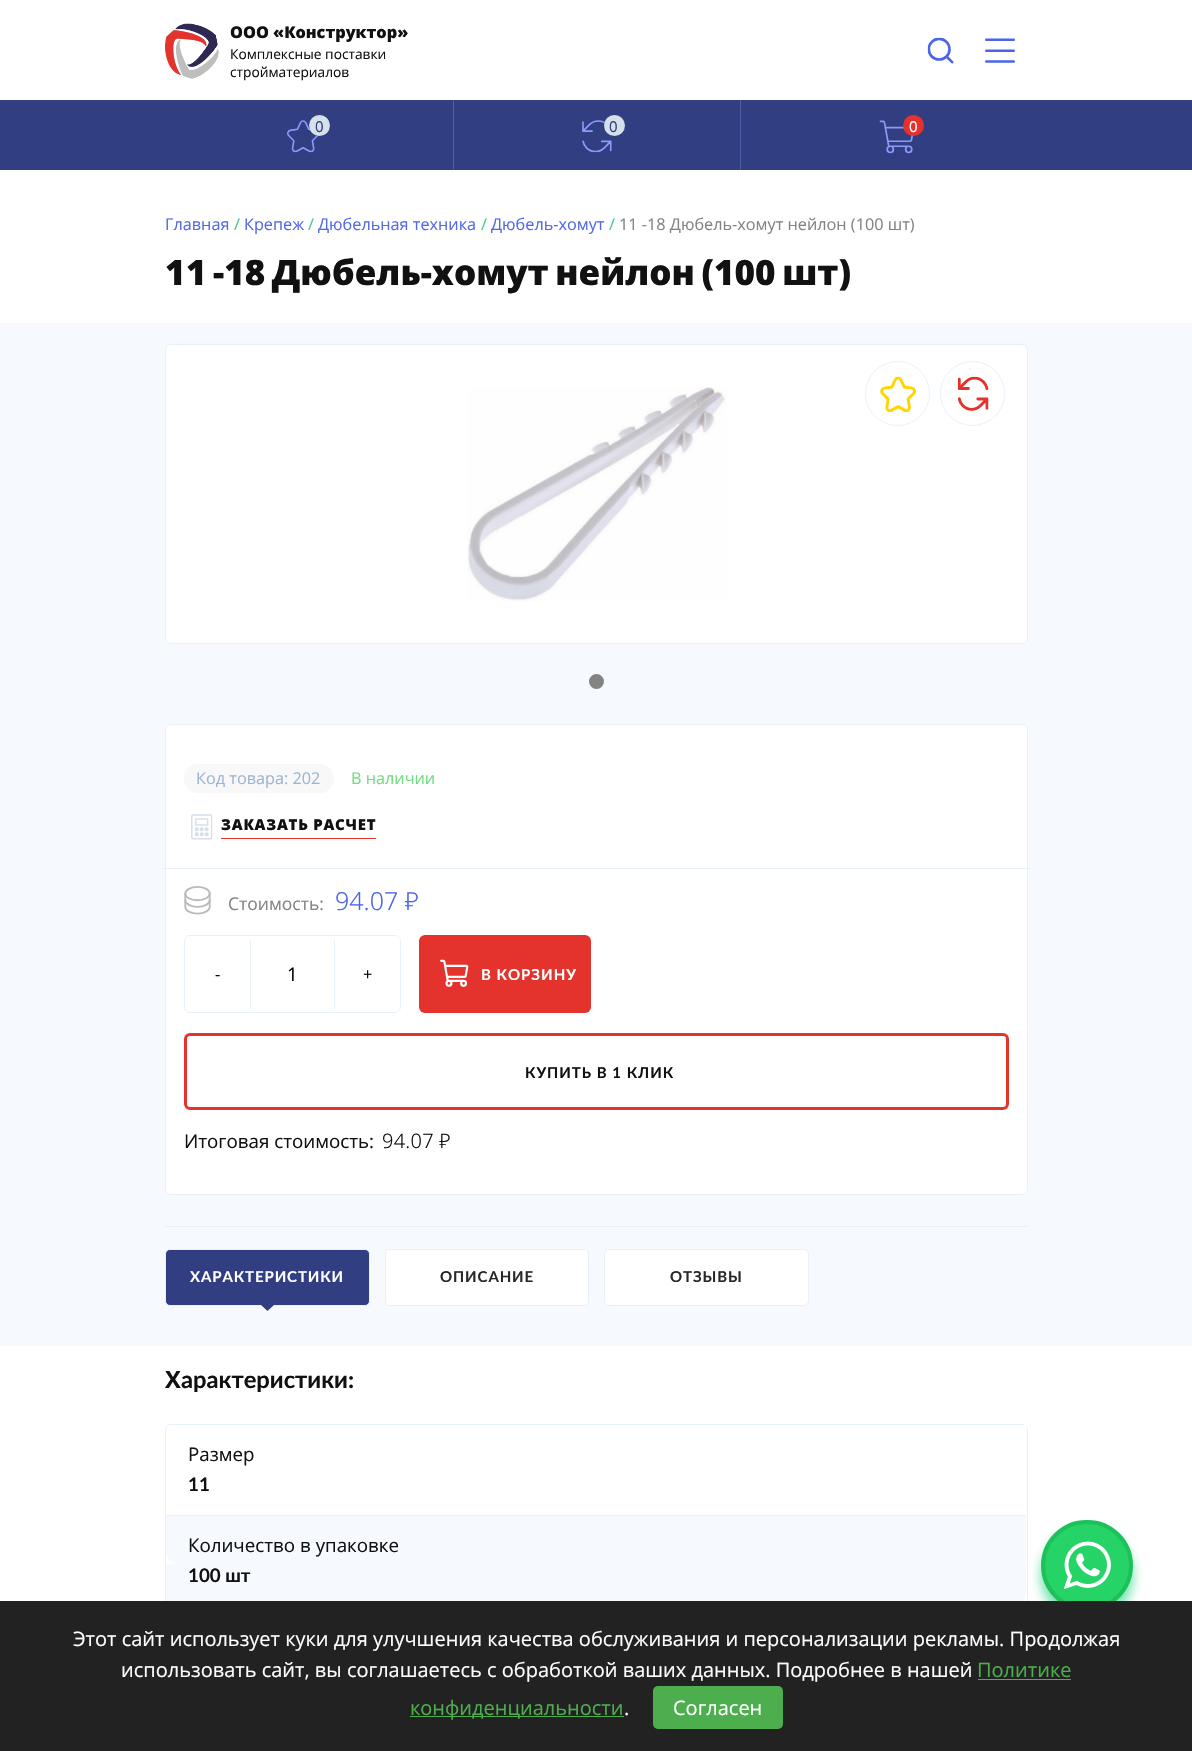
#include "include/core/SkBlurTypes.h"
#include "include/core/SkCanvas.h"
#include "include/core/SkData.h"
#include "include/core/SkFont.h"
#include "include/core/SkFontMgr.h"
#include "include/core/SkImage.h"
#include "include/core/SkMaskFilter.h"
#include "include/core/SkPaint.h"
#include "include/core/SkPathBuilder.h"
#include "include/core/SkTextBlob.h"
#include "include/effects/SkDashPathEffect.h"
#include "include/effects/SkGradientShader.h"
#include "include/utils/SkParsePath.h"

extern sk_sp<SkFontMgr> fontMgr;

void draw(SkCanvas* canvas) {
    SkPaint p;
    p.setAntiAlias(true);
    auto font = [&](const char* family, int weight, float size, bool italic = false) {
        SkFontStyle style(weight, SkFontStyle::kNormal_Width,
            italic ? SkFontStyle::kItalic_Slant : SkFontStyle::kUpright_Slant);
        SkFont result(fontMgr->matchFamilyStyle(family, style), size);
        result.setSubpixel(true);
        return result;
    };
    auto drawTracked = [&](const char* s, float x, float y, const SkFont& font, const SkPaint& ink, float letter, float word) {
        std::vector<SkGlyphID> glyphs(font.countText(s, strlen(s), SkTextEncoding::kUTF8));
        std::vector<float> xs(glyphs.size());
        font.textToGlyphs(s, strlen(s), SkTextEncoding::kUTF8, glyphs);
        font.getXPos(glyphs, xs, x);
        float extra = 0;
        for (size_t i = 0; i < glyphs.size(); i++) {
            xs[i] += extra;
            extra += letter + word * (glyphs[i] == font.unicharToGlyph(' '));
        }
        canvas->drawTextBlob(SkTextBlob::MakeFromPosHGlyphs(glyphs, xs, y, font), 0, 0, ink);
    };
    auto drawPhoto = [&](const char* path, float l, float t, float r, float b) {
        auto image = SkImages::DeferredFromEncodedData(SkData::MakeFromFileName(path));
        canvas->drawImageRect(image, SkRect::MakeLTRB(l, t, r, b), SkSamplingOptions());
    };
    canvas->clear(0xFFFFFFFF);
    drawPhoto("media/1.png", 165, 23, 219, 79);
    auto font1 = font("Open Sans", 800, 16.25f);
    p.setColor(0xFF111111);
    canvas->drawString("ООО «Конструктор»", 230, 38, font1, p);
    auto font2 = font("Open Sans", 400, 13.75f);
    canvas->drawString("Комплексные поставки", 230, 59, font2, p);
    canvas->drawString("стройматериалов", 230, 77, font2, p);
    drawPhoto("media/2.png", 927, 37, 954, 64);
    drawPhoto("media/3.png", 985, 38, 1015, 63);
    p.setColor(0xFF313E81);
    canvas->drawRect(SkRect::MakeLTRB(0, 100, 1192, 170), p);
    drawPhoto("media/4.png", 287, 120, 319, 153);
    p.setColor(0xFFD5E0E9);
    canvas->drawCircle(319.5f, 125.5f, 10.5f, p);
    auto font3 = font("Open Sans", 400, 15);
    p.setColor(0xFF313E81);
    canvas->drawString("0", 315, 132, font3, p);
    p.setColor(0xFF4F5EAB);
    canvas->drawRect(SkRect::MakeLTRB(453, 100, 454, 170), p);
    drawPhoto("media/5.png", 582, 120, 612, 153);
    p.setColor(0xFFD5E0E9);
    canvas->drawCircle(614.5f, 125.5f, 10.5f, p);
    p.setColor(0xFF313E81);
    canvas->drawString("0", 609, 132, font3, p);
    p.setColor(0xFF4F5EAB);
    canvas->drawRect(SkRect::MakeLTRB(740, 100, 741, 170), p);
    drawPhoto("media/6.png", 879, 120, 914, 154);
    p.setColor(0xFFE3332C);
    canvas->drawCircle(913.5f, 125.5f, 10.5f, p);
    p.setColor(0xFFFFFFFF);
    canvas->drawString("0", 909, 132, font3, p);
    auto font4 = font("Open Sans", 400, 16.25f);
    p.setColor(0xFF5169EA);
    canvas->drawString("Главная", 165, 230, font4, p);
    p.setColor(0xFF41C78A);
    canvas->drawString("/", 234, 230, font4, p);
    p.setColor(0xFF5169EA);
    canvas->drawString("Крепеж", 244, 230, font4, p);
    p.setColor(0xFF41C78A);
    canvas->drawString("/", 308, 230, font4, p);
    p.setColor(0xFF5169EA);
    canvas->drawString("Дюбельная техника", 318, 230, font4, p);
    p.setColor(0xFF41C78A);
    canvas->drawString("/", 481, 230, font4, p);
    p.setColor(0xFF5169EA);
    canvas->drawString("Дюбель-хомут", 491, 230, font4, p);
    p.setColor(0xFF41C78A);
    canvas->drawString("/", 609, 230, font4, p);
    p.setColor(0xFF838383);
    canvas->drawString("11 -18 Дюбель-хомут нейлон (100 шт)", 619, 230, font4, p);
    auto font5 = font("Noto Sans", 900, 35);
    p.setColor(0xFF111111);
    canvas->drawString("1", 165, 285, font5, p);
    auto font6 = font("Open Sans", 800, 35);
    drawTracked("1 -18 Дюбель-хомут нейлон (100 шт)", 186, 285, font6, p, 0, -2.5f);
    p.setColor(0xFFF6FAFF);
    canvas->drawRect(SkRect::MakeLTRB(0, 323, 1192, 1346), p);
    p.setColor(0xFFFFFFFF);
    canvas->drawRoundRect(SkRect::MakeLTRB(165.5f, 344.5f, 1027.5f, 643.5f), 5.5f, 5.5f, p);
    p.setStyle(SkPaint::kStroke_Style);
    p.setStrokeWidth(1);
    p.setColor(0xFFE8F1FB);
    canvas->drawRoundRect(SkRect::MakeLTRB(165.5f, 344.5f, 1027.5f, 643.5f), 5.5f, 5.5f, p);
    drawPhoto("media/7.png", 467, 387, 727, 602);
    canvas->drawCircle(897.5f, 393.5f, 32, p);
    drawPhoto("media/8.png", 880, 376, 916, 413);
    canvas->drawCircle(972.5f, 393.5f, 32, p);
    drawPhoto("media/9.png", 957, 376, 989, 411);
    p.setStyle(SkPaint::kFill_Style);
    p.setColor(0xFF838383);
    canvas->drawCircle(596.5f, 681.5f, 5.5f, p);
    p.setStyle(SkPaint::kStroke_Style);
    p.setStrokeWidth(4);
    canvas->drawCircle(596.5f, 681.5f, 5.5f, p);
    p.setStyle(SkPaint::kFill_Style);
    p.setColor(0xFFFFFFFF);
    canvas->drawRoundRect(SkRect::MakeLTRB(165.5f, 724.5f, 1027.5f, 1194.5f), 5.5f, 5.5f, p);
    p.setStyle(SkPaint::kStroke_Style);
    p.setStrokeWidth(1);
    p.setColor(0xFFE8F1FB);
    canvas->drawRoundRect(SkRect::MakeLTRB(165.5f, 724.5f, 1027.5f, 1194.5f), 5.5f, 5.5f, p);
    p.setStyle(SkPaint::kFill_Style);
    p.setColor(0xFFF8F8F8);
    canvas->drawRoundRect(SkRect::MakeLTRB(184, 764, 334, 793), 14.5f, 14.5f, p);
    p.setColor(0xFF9CB5D6);
    canvas->drawString("Код товара: 202", 196, 784, font4, p);
    p.setColor(0xFF72DC83);
    canvas->drawString("В наличии", 351, 784, font4, p);
    p.setColor(0xFFE3332C);
    canvas->drawRect(SkRect::MakeLTRB(221, 838, 376, 839), p);
    drawPhoto("media/10.png", 191, 814, 213, 840);
    auto font7 = font("Open Sans", 800, 15);
    p.setColor(0xFF111111);
    drawTracked("ЗАКАЗАТЬ РАСЧЕТ", 221, 830, font7, p, 0.75f, 0);
    p.setColor(0xFFE8F1FB);
    canvas->drawRect(SkRect::MakeLTRB(163, 868, 1030, 869), p);
    drawPhoto("media/11.png", 184, 886, 211, 915);
    auto font8 = font("Open Sans", 400, 17.5f);
    p.setColor(0xFF838383);
    canvas->drawString("Стоимость:", 228, 910, font8, p);
    auto font9 = font("Noto Sans", 300, 25);
    p.setColor(0xFF4B64EB);
    canvas->drawString("94.07 ₽", 335, 910, font9, p);
    p.setStyle(SkPaint::kStroke_Style);
    p.setColor(0xFFE8F1FB);
    canvas->drawRoundRect(SkRect::MakeLTRB(184.5f, 935.5f, 400.5f, 1012.5f), 5.5f, 5.5f, p);
    p.setStyle(SkPaint::kFill_Style);
    canvas->drawRect(SkRect::MakeLTRB(250, 940, 251, 1009), p);
    p.setColor(0xFF060606);
    canvas->drawString("-", 215, 980, font4, p);
    auto font10 = font("Open Sans", 400, 18.75f);
    canvas->drawString("1", 287, 981, font10, p);
    p.setColor(0xFFE8F1FB);
    canvas->drawRect(SkRect::MakeLTRB(334, 940, 335, 1009), p);
    p.setColor(0xFF000000);
    canvas->drawString("+", 363, 980, font4, p);
    p.setColor(0xFFE3332C);
    canvas->drawRoundRect(SkRect::MakeLTRB(419, 935, 591, 1013), 6, 6, p);
    drawPhoto("media/12.png", 440, 959, 469, 987);
    auto font11 = font("Lato", 700, 15);
    p.setColor(0xFFFFFFFF);
    drawTracked("В КОРЗИНУ", 481, 980, font11, p, 1, 0);
    p.setStyle(SkPaint::kStroke_Style);
    p.setStrokeWidth(3);
    p.setColor(0xFFE3332C);
    canvas->drawRoundRect(SkRect::MakeLTRB(185.5f, 1034.5f, 1007.5f, 1108.5f), 4.5f, 4.5f, p);
    p.setStyle(SkPaint::kFill_Style);
    p.setColor(0xFF111111);
    drawTracked("КУПИТЬ В 1 КЛИК", 525, 1078, font11, p, 1, 0);
    canvas->drawString("Итоговая стоимость:", 184, 1148, font10, p);
    auto font12 = font("Noto Sans", 300, 20);
    drawTracked("94.07 ₽", 382, 1148, font12, p, 0.25f, 0);
    p.setColor(0xFFE8F1FB);
    canvas->drawRect(SkRect::MakeLTRB(165, 1226, 1028, 1227), p);
    p.setColor(0xFF313E81);
    canvas->drawRoundRect(SkRect::MakeLTRB(165.5f, 1249.5f, 369.5f, 1305.5f), 4.5f, 4.5f, p);
    p.setStyle(SkPaint::kStroke_Style);
    p.setStrokeWidth(1);
    p.setColor(0xFFE8F1FB);
    canvas->drawRoundRect(SkRect::MakeLTRB(165.5f, 1249.5f, 369.5f, 1305.5f), 4.5f, 4.5f, p);
    p.setStyle(SkPaint::kFill_Style);
    p.setColor(0xFFFFFFFF);
    drawTracked("ХАРАКТЕРИСТИКИ", 190, 1282, font11, p, 0.9f, 0);
    p.setColor(0xFF313E81);
    canvas->drawPath(SkPathBuilder().moveTo(261, 1305).lineTo(274, 1305).lineTo(267.5f, 1311).close().detach(), p);
    p.setColor(0xFFFFFFFF);
    canvas->drawRoundRect(SkRect::MakeLTRB(385.5f, 1249.5f, 588.5f, 1305.5f), 4.5f, 4.5f, p);
    p.setStyle(SkPaint::kStroke_Style);
    p.setColor(0xFFE8F1FB);
    canvas->drawRoundRect(SkRect::MakeLTRB(385.5f, 1249.5f, 588.5f, 1305.5f), 4.5f, 4.5f, p);
    p.setStyle(SkPaint::kFill_Style);
    p.setColor(0xFF282828);
    drawTracked("ОПИСАНИЕ", 440, 1282, font11, p, 0.9f, 0);
    p.setColor(0xFFFFFFFF);
    canvas->drawRoundRect(SkRect::MakeLTRB(604.5f, 1249.5f, 808.5f, 1305.5f), 4.5f, 4.5f, p);
    p.setStyle(SkPaint::kStroke_Style);
    p.setColor(0xFFE8F1FB);
    canvas->drawRoundRect(SkRect::MakeLTRB(604.5f, 1249.5f, 808.5f, 1305.5f), 4.5f, 4.5f, p);
    p.setStyle(SkPaint::kFill_Style);
    p.setColor(0xFF282828);
    drawTracked("ОТЗЫВЫ", 670, 1282, font11, p, 0.9f, 0);
    auto font13 = font("Noto Sans", 700, 23.75f);
    p.setColor(0xFF111111);
    canvas->drawString("Х", 165, 1388, font13, p);
    auto font14 = font("Lato", 700, 23.75f);
    canvas->drawString("арактеристики:", 181, 1388, font14, p);
    p.setStyle(SkPaint::kStroke_Style);
    p.setColor(0xFFE8F1FB);
    canvas->drawRoundRect(SkRect::MakeLTRB(165.5f, 1424.5f, 1027.5f, 1607.5f), 5.5f, 5.5f, p);
    p.setStyle(SkPaint::kFill_Style);
    canvas->drawRect(SkRect::MakeLTRB(166, 1515, 1026, 1516), p);
    p.setColor(0xFFFFFFFF);
    canvas->drawPath(SkPathBuilder().moveTo(179, 1425).lineTo(1026, 1425).lineTo(1026, 1473).lineTo(166, 1473).lineTo(166, 1438).cubicTo(166, 1431, 172, 1425, 179, 1425).close().detach(), p);
    p.setColor(0xFF111111);
    canvas->drawString("Размер", 188, 1461, font10, p);
    auto font15 = font("Lato", 700, 18.75f);
    canvas->drawString("11", 188, 1491, font15, p);
    p.setColor(0xFFF6FAFF);
    canvas->drawPath(SkPathBuilder().moveTo(166, 1516).lineTo(1026, 1516).lineTo(1026, 1564).lineTo(179, 1564).cubicTo(172, 1564, 166, 1558, 166, 1551).close().detach(), p);
    p.setColor(0xFF111111);
    canvas->drawString("Количество в упаковке", 188, 1552, font10, p);
    p.setColor(0xFFF6FAFF);
    canvas->drawPath(SkPathBuilder().moveTo(166, 1564).lineTo(1026, 1564).lineTo(1026, 1593).cubicTo(1026, 1600, 1020, 1606, 1013, 1606).lineTo(166, 1606).close().detach(), p);
    p.setColor(0xFF111111);
    canvas->drawString("100 шт", 188, 1582, font15, p);
    p.setColor(0x9907CE70);
    p.setMaskFilter(SkMaskFilter::MakeBlur(kNormal_SkBlurStyle, 6));
    canvas->drawRoundRect(SkRect::MakeLTRB(1041, 1530, 1133, 1621), 45.5f, 45.5f, p);
    p.setMaskFilter(nullptr);
    p.setColor(0xFF25D366);
    canvas->drawRoundRect(SkRect::MakeLTRB(1043, 1522, 1131, 1609), 43.5f, 43.5f, p);
    p.setStyle(SkPaint::kStroke_Style);
    p.setStrokeWidth(4);
    p.setColor(0xFF1CC15A);
    canvas->drawRoundRect(SkRect::MakeLTRB(1043, 1522, 1131, 1609), 43.5f, 43.5f, p);
    drawPhoto("media/13.png", 1063, 1541, 1111, 1589);
    p.setStyle(SkPaint::kFill_Style);
    p.setColor(0xFF222222);
    canvas->drawRect(SkRect::MakeLTRB(0, 1601, 1192, 1751), p);
    auto font16 = font("Open Sans", 400, 20);
    p.setColor(0xFFFFFFFF);
    canvas->drawString("Этот сайт использует куки для улучшения качества обслуживания и персонализации рекламы. Продолжая", 73, 1646, font16, p);
    canvas->drawString("использовать сайт, вы соглашаетесь с обработкой ваших данных. Подробнее в нашей", 121, 1677, font16, p);
    p.setColor(0xFF4CAE4C);
    canvas->drawString("Политике", 977, 1677, font16, p);
    canvas->drawRect(SkRect::MakeLTRB(978, 1679, 1071, 1680), p);
    canvas->drawRect(SkRect::MakeLTRB(410, 1716, 624, 1717), p);
    canvas->drawString("конфиденциальности", 410, 1715, font16, p);
    p.setColor(0xFFFFFFFF);
    canvas->drawString(".", 624, 1715, font16, p);
    p.setColor(0xFF4CAE4C);
    canvas->drawRoundRect(SkRect::MakeLTRB(653, 1686, 783, 1729), 5, 5, p);
    p.setColor(0xFFFFFFFF);
    canvas->drawString("Согласен", 673, 1715, font16, p);
}
